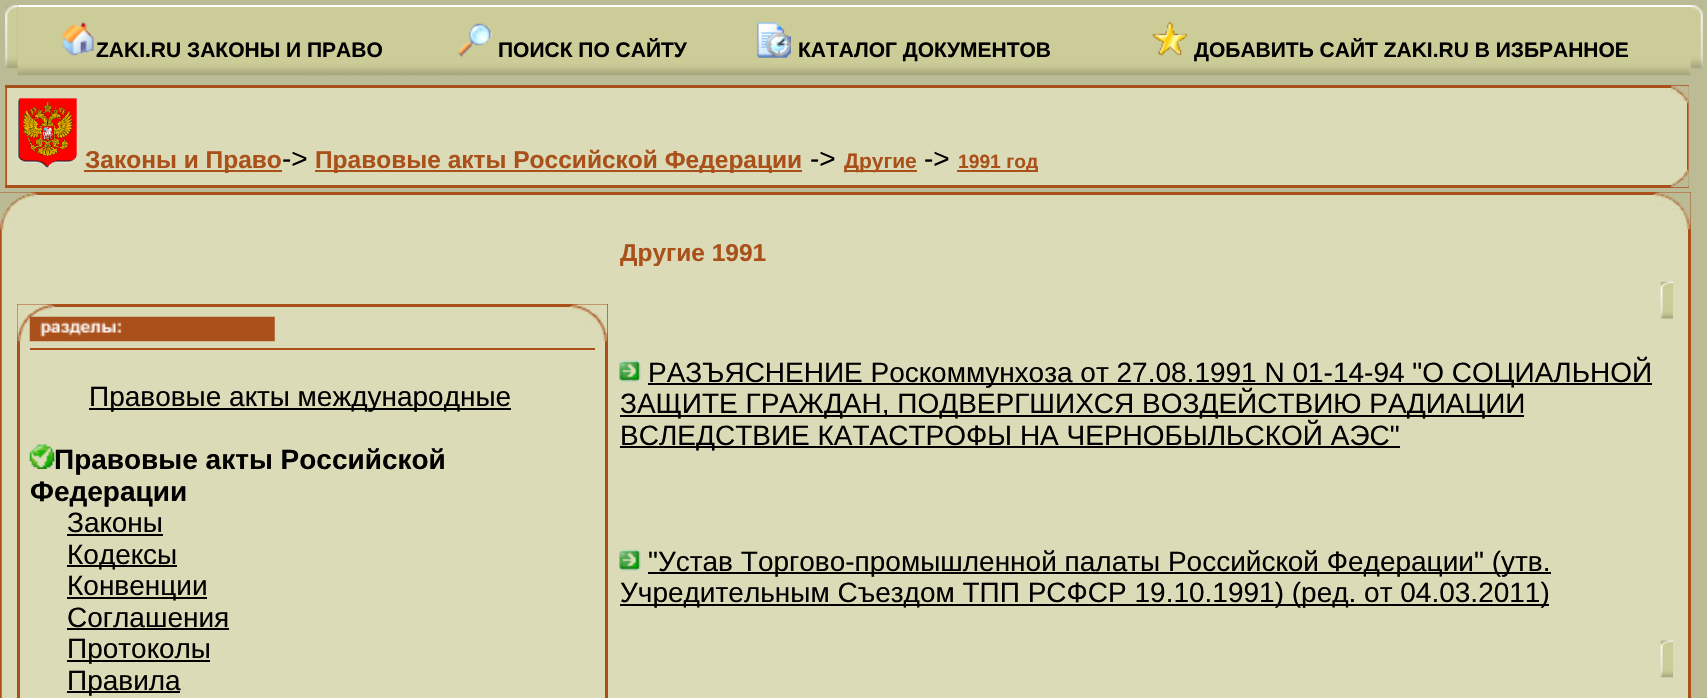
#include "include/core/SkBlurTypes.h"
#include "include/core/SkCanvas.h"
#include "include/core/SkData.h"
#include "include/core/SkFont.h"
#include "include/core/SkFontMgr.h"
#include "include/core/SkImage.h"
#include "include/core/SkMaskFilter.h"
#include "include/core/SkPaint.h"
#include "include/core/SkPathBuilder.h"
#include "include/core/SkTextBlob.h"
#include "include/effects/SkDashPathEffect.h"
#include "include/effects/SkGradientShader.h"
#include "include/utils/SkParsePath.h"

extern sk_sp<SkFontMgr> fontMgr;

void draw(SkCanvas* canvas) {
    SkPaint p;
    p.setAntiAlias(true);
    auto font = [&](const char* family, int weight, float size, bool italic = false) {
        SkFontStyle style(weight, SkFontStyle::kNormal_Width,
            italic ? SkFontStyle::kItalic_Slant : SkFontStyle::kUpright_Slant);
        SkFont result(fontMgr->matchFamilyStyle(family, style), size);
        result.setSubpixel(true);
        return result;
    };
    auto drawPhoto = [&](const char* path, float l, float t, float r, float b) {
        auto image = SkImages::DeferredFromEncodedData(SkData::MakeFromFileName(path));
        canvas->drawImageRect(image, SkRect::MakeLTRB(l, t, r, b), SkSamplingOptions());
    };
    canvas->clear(0xFFBBBB95);
    p.setColor(0xFFCCCC99);
    canvas->drawRect(SkRect::MakeLTRB(18, 7, 1691, 75), p);
    drawPhoto("media/2.png", 17, 59, 1691, 76);
    drawPhoto("media/1.png", 5, 5, 18, 69);
    p.setColor(0xFFFFFFFF);
    canvas->drawRect(SkRect::MakeLTRB(18, 5, 1691, 7), p);
    drawPhoto("media/3.png", 62, 22, 94, 56);
    auto font1 = font("Liberation Sans", 700, 21);
    p.setColor(0xFF000000);
    canvas->drawString("ZAKI.RU ЗАКОНЫ И ПРАВО", 96, 57, font1, p);
    drawPhoto("media/4.png", 457, 23, 492, 57);
    canvas->drawString("ПОИСК ПО САЙТУ", 498, 57, font1, p);
    drawPhoto("media/5.png", 756, 22, 791, 58);
    canvas->drawString("КАТАЛОГ ДОКУМЕНТОВ", 798, 57, font1, p);
    drawPhoto("media/6.png", 1152, 22, 1188, 56);
    canvas->drawString("ДОБАВИТЬ САЙТ ZAKI.RU В ИЗБРАННОЕ", 1194, 57, font1, p);
    drawPhoto("media/7.png", 1690, 5, 1703, 69);
    {
        const struct { float l, t, r, b; SkColor color; } items[] = {
            {5, 88, 1689, 185, 0xFFDBDBB7},
            {5, 85, 1689, 88, 0xFFAA501B},
            {5, 185, 1689, 188, 0xFFAA501B},
        };
        for (auto [l, t, r, b, color] : items) {
            p.setColor(color);
            canvas->drawRect(SkRect::MakeLTRB(l, t, r, b), p);
        }
    }
    drawPhoto("media/8.png", 5, 88, 7, 185);
    drawPhoto("media/9.png", 1687, 88, 1689, 185);
    drawPhoto("media/10.png", 1671, 169, 1689, 188);
    drawPhoto("media/11.png", 1671, 85, 1689, 104);
    drawPhoto("media/12.png", 17, 98, 77, 168);
    p.setColor(0xFFA9501B);
    canvas->drawRect(SkRect::MakeLTRB(84, 170, 282, 172), p);
    auto font2 = font("Liberation Sans", 700, 24.5f);
    canvas->drawString("Законы и Право", 85, 168, font2, p);
    auto font3 = font("Liberation Sans", 400, 28);
    p.setColor(0xFF000000);
    canvas->drawString("->", 282, 168, font3, p);
    p.setColor(0xFFA9501B);
    canvas->drawRect(SkRect::MakeLTRB(315, 170, 802, 172), p);
    canvas->drawString("Правовые акты Российской Федерации", 315, 168, font2, p);
    p.setColor(0xFF000000);
    canvas->drawString("->", 810, 168, font3, p);
    p.setColor(0xFFA9501B);
    canvas->drawRect(SkRect::MakeLTRB(844, 170, 917, 172), p);
    canvas->drawString("Другие", 844, 168, font1, p);
    p.setColor(0xFF000000);
    canvas->drawString("->", 924, 168, font3, p);
    p.setColor(0xFFA9501B);
    canvas->drawRect(SkRect::MakeLTRB(957, 170, 1038, 172), p);
    auto font4 = font("Liberation Sans", 700, 19.25f);
    canvas->drawString("1991 год", 958, 168, font4, p);
    p.setColor(0xFFDBDBB7);
    canvas->drawRect(SkRect::MakeLTRB(1, 195, 1688, 698), p);
    p.setColor(0xFFAA501B);
    canvas->drawRect(SkRect::MakeLTRB(0, 192, 1691, 195), p);
    drawPhoto("media/13.png", 0, 229, 2, 698);
    canvas->drawRect(SkRect::MakeLTRB(1688, 195, 1691, 698), p);
    drawPhoto("media/14.png", 0, 192, 37, 230);
    drawPhoto("media/15.png", 1653, 192, 1691, 230);
    {
        const struct { float l, t, r, b; SkColor color; } items[] = {
            {17, 304, 608, 307, 0xFFAA501B},
            {17, 307, 20, 698, 0xFFAA501B},
            {605, 307, 608, 698, 0xFFAA501B},
        };
        for (auto [l, t, r, b, color] : items) {
            p.setColor(color);
            canvas->drawRect(SkRect::MakeLTRB(l, t, r, b), p);
        }
    }
    drawPhoto("media/16.png", 17, 304, 55, 342);
    drawPhoto("media/17.png", 570, 304, 608, 342);
    drawPhoto("media/18.png", 29, 316, 275, 342);
    p.setColor(0xFFA9501B);
    canvas->drawRect(SkRect::MakeLTRB(30, 348, 595, 350), p);
    p.setColor(0xFF000000);
    canvas->drawRect(SkRect::MakeLTRB(89, 408, 511, 410), p);
    canvas->drawString("Правовые акты международные", 89, 406, font3, p);
    drawPhoto("media/19.png", 29, 444, 55, 469);
    auto font5 = font("Liberation Sans", 700, 28);
    canvas->drawString("Правовые акты Российской", 54, 469, font5, p);
    canvas->drawString("Федерации", 30, 501, font5, p);
    canvas->drawString("Законы", 67, 532, font3, p);
    canvas->drawRect(SkRect::MakeLTRB(67, 534, 163, 536), p);
    canvas->drawRect(SkRect::MakeLTRB(67, 565, 177, 567), p);
    canvas->drawString("Кодексы", 67, 564, font3, p);
    canvas->drawRect(SkRect::MakeLTRB(67, 597, 207, 599), p);
    canvas->drawString("Конвенции", 67, 595, font3, p);
    canvas->drawString("Соглашения", 67, 627, font3, p);
    canvas->drawRect(SkRect::MakeLTRB(67, 628, 229, 630), p);
    canvas->drawRect(SkRect::MakeLTRB(67, 660, 210, 662), p);
    canvas->drawString("Протоколы", 67, 658, font3, p);
    canvas->drawRect(SkRect::MakeLTRB(67, 691, 180, 693), p);
    canvas->drawString("Правила", 67, 690, font3, p);
    p.setColor(0xFFA9501B);
    canvas->drawString("Другие 1991", 620, 261, font2, p);
    drawPhoto("media/20.png", 1660, 281, 1673, 319);
    drawPhoto("media/21.png", 619, 360, 641, 382);
    p.setColor(0xFF000000);
    canvas->drawRect(SkRect::MakeLTRB(648, 383, 1652, 385), p);
    canvas->drawString("РАЗЪЯСНЕНИЕ Роскоммунхоза от 27.08.1991 N 01-14-94 \"О СОЦИАЛЬНОЙ", 648, 382, font3, p);
    canvas->drawRect(SkRect::MakeLTRB(620, 415, 1524, 417), p);
    canvas->drawString("ЗАЩИТЕ ГРАЖДАН, ПОДВЕРГШИХСЯ ВОЗДЕЙСТВИЮ РАДИАЦИИ", 620, 413, font3, p);
    canvas->drawRect(SkRect::MakeLTRB(620, 446, 1400, 448), p);
    canvas->drawString("ВСЛЕДСТВИЕ КАТАСТРОФЫ НА ЧЕРНОБЫЛЬСКОЙ АЭС\"", 620, 445, font3, p);
    drawPhoto("media/21.png", 619, 549, 641, 571);
    canvas->drawRect(SkRect::MakeLTRB(648, 572, 1551, 574), p);
    canvas->drawString("\"Устав Торгово-промышленной палаты Российской Федерации\" (утв.", 648, 571, font3, p);
    canvas->drawRect(SkRect::MakeLTRB(620, 604, 1549, 606), p);
    canvas->drawString("Учредительным Съездом ТПП РСФСР 19.10.1991) (ред. от 04.03.2011)", 620, 602, font3, p);
    drawPhoto("media/22.png", 1660, 640, 1673, 678);
}
